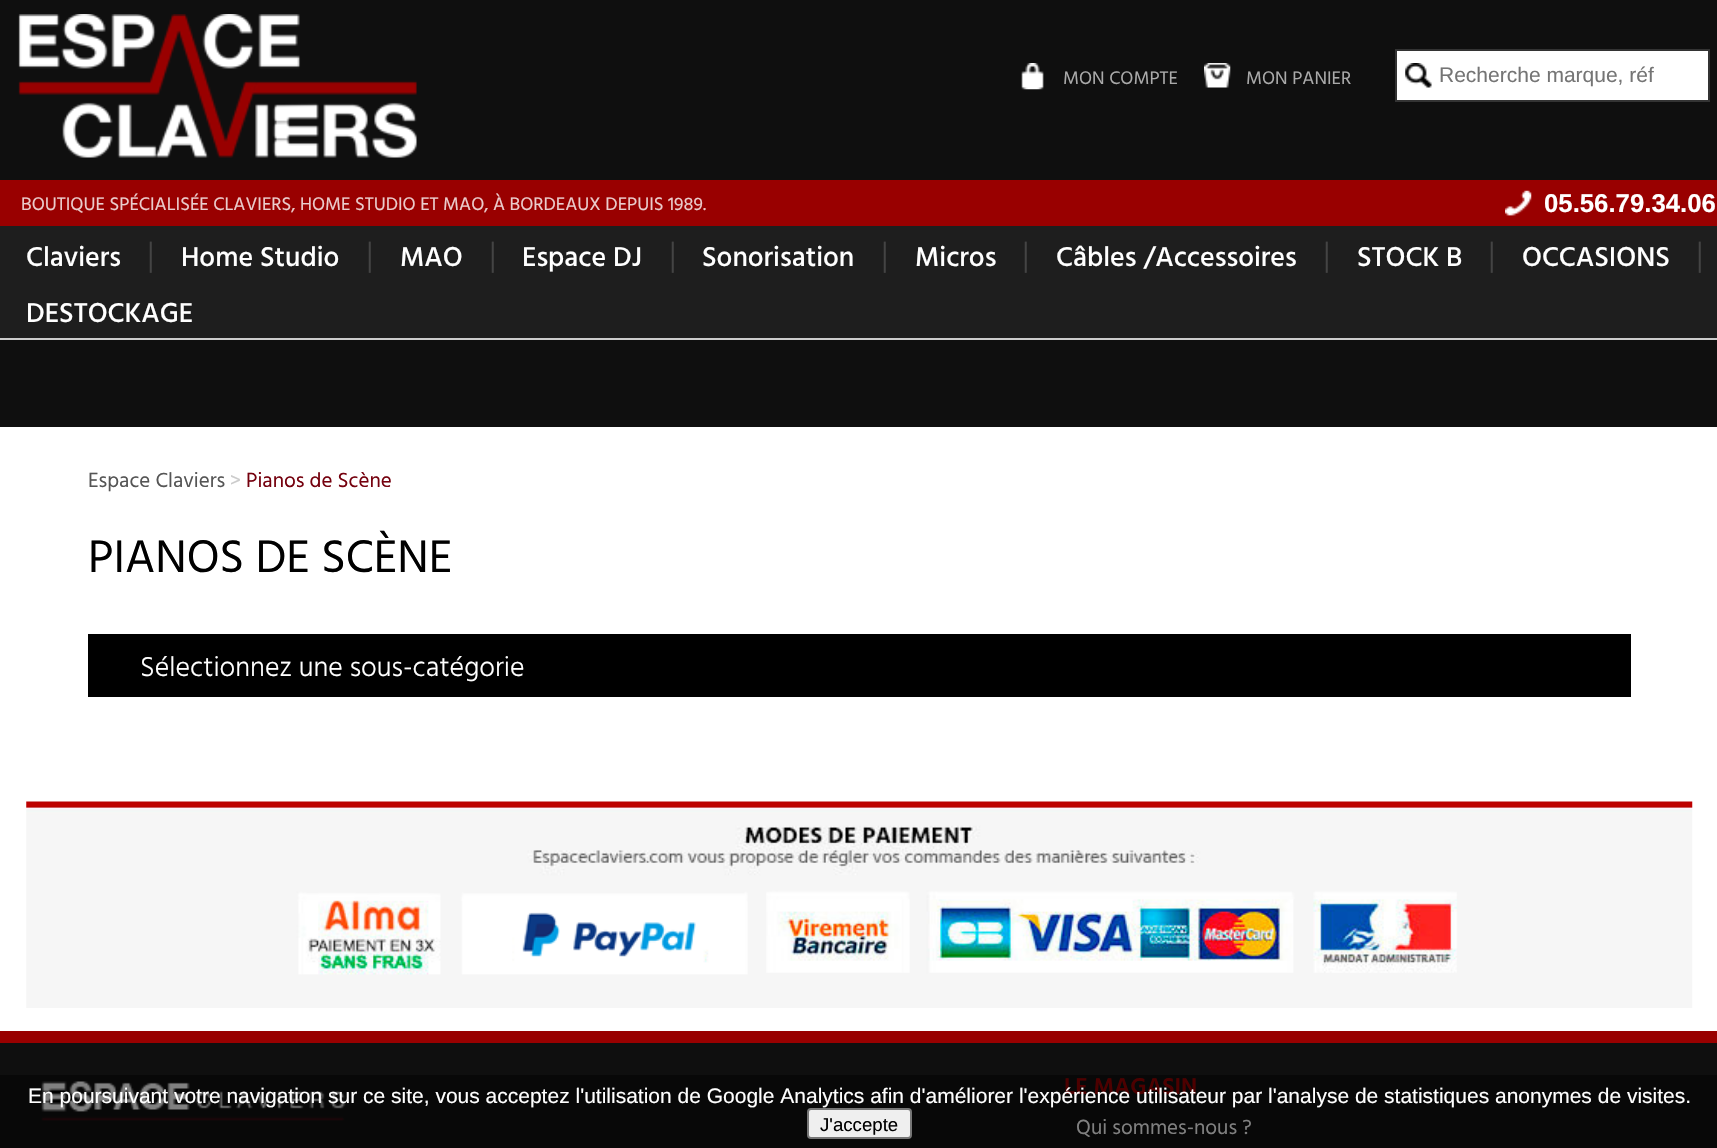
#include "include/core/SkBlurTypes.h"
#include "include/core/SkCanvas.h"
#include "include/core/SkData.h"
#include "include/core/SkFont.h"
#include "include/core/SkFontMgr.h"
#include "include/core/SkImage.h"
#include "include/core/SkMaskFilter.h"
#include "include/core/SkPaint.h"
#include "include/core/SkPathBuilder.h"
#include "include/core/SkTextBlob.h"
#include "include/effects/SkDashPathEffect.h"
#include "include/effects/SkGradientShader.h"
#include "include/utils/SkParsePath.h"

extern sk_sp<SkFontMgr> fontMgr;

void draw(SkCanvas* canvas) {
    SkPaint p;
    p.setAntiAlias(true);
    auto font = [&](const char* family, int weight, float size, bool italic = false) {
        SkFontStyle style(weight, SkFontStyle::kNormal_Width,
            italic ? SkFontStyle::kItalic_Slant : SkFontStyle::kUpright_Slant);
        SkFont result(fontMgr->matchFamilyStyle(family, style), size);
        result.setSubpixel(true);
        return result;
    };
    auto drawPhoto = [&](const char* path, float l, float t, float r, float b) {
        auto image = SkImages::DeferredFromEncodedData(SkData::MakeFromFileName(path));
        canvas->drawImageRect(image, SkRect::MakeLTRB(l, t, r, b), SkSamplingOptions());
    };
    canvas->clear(0xFF0F0F0F);
    drawPhoto("media/1.png", 18, 14, 417, 158);
    drawPhoto("media/2.png", 1021, 63, 1044, 90);
    auto font1 = font("Hind Vadodara", 400, 18.65f);
    p.setColor(0xFFAAAAAA);
    canvas->drawString("MON COMPTE", 1063, 84, font1, p);
    drawPhoto("media/3.png", 1204, 63, 1231, 88);
    canvas->drawString("MON PANIER", 1246, 84, font1, p);
    p.setColor(0xFFFFFFFF);
    canvas->drawRect(SkRect::MakeLTRB(1397, 51, 1708, 100), p);
    drawPhoto("media/4.png", 1405, 63, 1432, 88);
    p.setStyle(SkPaint::kStroke_Style);
    p.setStrokeWidth(2);
    p.setColor(0xFF333333);
    canvas->drawRect(SkRect::MakeLTRB(1396, 50, 1709, 101), p);
    auto font2 = font("Liberation Sans", 400, 21);
    p.setStyle(SkPaint::kFill_Style);
    p.setColor(0xFF757575);
    canvas->drawString("Recherche marque, réf", 1439, 82, font2, p);
    p.setColor(0xFF990000);
    canvas->drawRect(SkRect::MakeLTRB(0, 180, 1717, 226), p);
    p.setColor(0xFFEBCCCC);
    canvas->drawString("BOUTIQUE SPÉCIALISÉE CLAVIERS, HOME STUDIO ET MAO, À BORDEAUX DEPUIS 1989.", 21, 210, font1, p);
    drawPhoto("media/5.png", 1505, 190, 1532, 216);
    auto font3 = font("Liberation Sans", 700, 25.75f);
    p.setColor(0xFFFFFFFF);
    canvas->drawString("05.56.79.34.06", 1544, 212, font3, p);
    p.setColor(0xFF1E1E1E);
    canvas->drawRect(SkRect::MakeLTRB(0, 226, 1717, 338), p);
    p.setColor(0xFFCCCCCC);
    canvas->drawRect(SkRect::MakeLTRB(0, 338, 1717, 340), p);
    auto font4 = font("Hind Vadodara", 500, 28);
    p.setColor(0xFFFFFFFF);
    canvas->drawString("Claviers", 26, 266, font4, p);
    auto font5 = font("Hind Vadodara", 300, 35);
    p.setColor(0xFF444444);
    canvas->drawString("|", 147, 266, font5, p);
    p.setColor(0xFFFFFFFF);
    canvas->drawString("Home Studio", 181, 266, font4, p);
    p.setColor(0xFF444444);
    canvas->drawString("|", 366, 266, font5, p);
    p.setColor(0xFFFFFFFF);
    canvas->drawString("MAO", 400, 266, font4, p);
    p.setColor(0xFF444444);
    canvas->drawString("|", 489, 266, font5, p);
    p.setColor(0xFFFFFFFF);
    canvas->drawString("Espace DJ", 522, 266, font4, p);
    p.setColor(0xFF444444);
    canvas->drawString("|", 669, 266, font5, p);
    p.setColor(0xFFFFFFFF);
    canvas->drawString("Sonorisation", 702, 266, font4, p);
    p.setColor(0xFF444444);
    canvas->drawString("|", 881, 266, font5, p);
    p.setColor(0xFFFFFFFF);
    canvas->drawString("Micros", 915, 266, font4, p);
    p.setColor(0xFF444444);
    canvas->drawString("|", 1022, 266, font5, p);
    p.setColor(0xFFFFFFFF);
    canvas->drawString("Câbles /Accessoires", 1056, 266, font4, p);
    p.setColor(0xFF444444);
    canvas->drawString("|", 1323, 266, font5, p);
    p.setColor(0xFFFFFFFF);
    canvas->drawString("STOCK B", 1357, 266, font4, p);
    p.setColor(0xFF444444);
    canvas->drawString("|", 1488, 266, font5, p);
    p.setColor(0xFFFFFFFF);
    canvas->drawString("OCCASIONS", 1522, 266, font4, p);
    p.setColor(0xFF444444);
    canvas->drawString("|", 1696, 266, font5, p);
    p.setColor(0xFFFFFFFF);
    canvas->drawString("DESTOCKAGE", 26, 322, font4, p);
    canvas->drawRect(SkRect::MakeLTRB(0, 427, 1717, 1031), p);
    auto font6 = font("Hind Vadodara", 400, 21);
    p.setColor(0xFF555555);
    canvas->drawString("Espace Claviers", 88, 487, font6, p);
    p.setColor(0xFFCCCCCC);
    canvas->drawString(">", 230, 487, font6, p);
    p.setColor(0xFF75010E);
    canvas->drawString("Pianos de Scène", 246, 487, font6, p);
    auto font7 = font("Hind Vadodara", 400, 46.75f);
    p.setColor(0xFF000000);
    canvas->drawString("PIANOS DE SCÈNE", 88, 572, font7, p);
    canvas->drawRect(SkRect::MakeLTRB(88, 634, 1631, 697), p);
    auto font8 = font("Hind Vadodara", 300, 28);
    p.setColor(0xFFFFFFFF);
    canvas->drawString("Sélectionnez une sous-catégorie", 140, 676, font8, p);
    drawPhoto("media/6.png", 26, 801, 1693, 1008);
    p.setColor(0xFF080808);
    canvas->drawRect(SkRect::MakeLTRB(0, 1075, 1717, 1148), p);
    p.setColor(0xFF990000);
    canvas->drawRect(SkRect::MakeLTRB(0, 1031, 1717, 1043), p);
    drawPhoto("media/7.png", 41, 1081, 346, 1121);
    auto font9 = font("Hind Vadodara", 600, 23.5f);
    p.setColor(0xFF4D0000);
    canvas->drawString("LE MAGASIN", 1064, 1094, font9, p);
    p.setColor(0xFF808080);
    canvas->drawString("Qui sommes-nous ?", 1076, 1134, font6, p);
    p.setColor(0xFFFFFFFF);
    canvas->drawString("En poursuivant votre navigation sur ce site, vous acceptez l'utilisation de Google Analytics afin d'améliorer l'expérience utilisateur par l'analyse de statistiques anonymes de visites.", 28, 1103, font2, p);
    p.setColor(0xFFEFEFEF);
    canvas->drawRoundRect(SkRect::MakeLTRB(808, 1109, 911, 1138), 3, 3, p);
    p.setStyle(SkPaint::kStroke_Style);
    p.setColor(0xFF767676);
    canvas->drawRoundRect(SkRect::MakeLTRB(808, 1109, 911, 1138), 3, 3, p);
    auto font10 = font("Liberation Sans", 400, 18.65f);
    p.setStyle(SkPaint::kFill_Style);
    p.setColor(0xFF000000);
    canvas->drawString("J'accepte", 820, 1131, font10, p);
}
